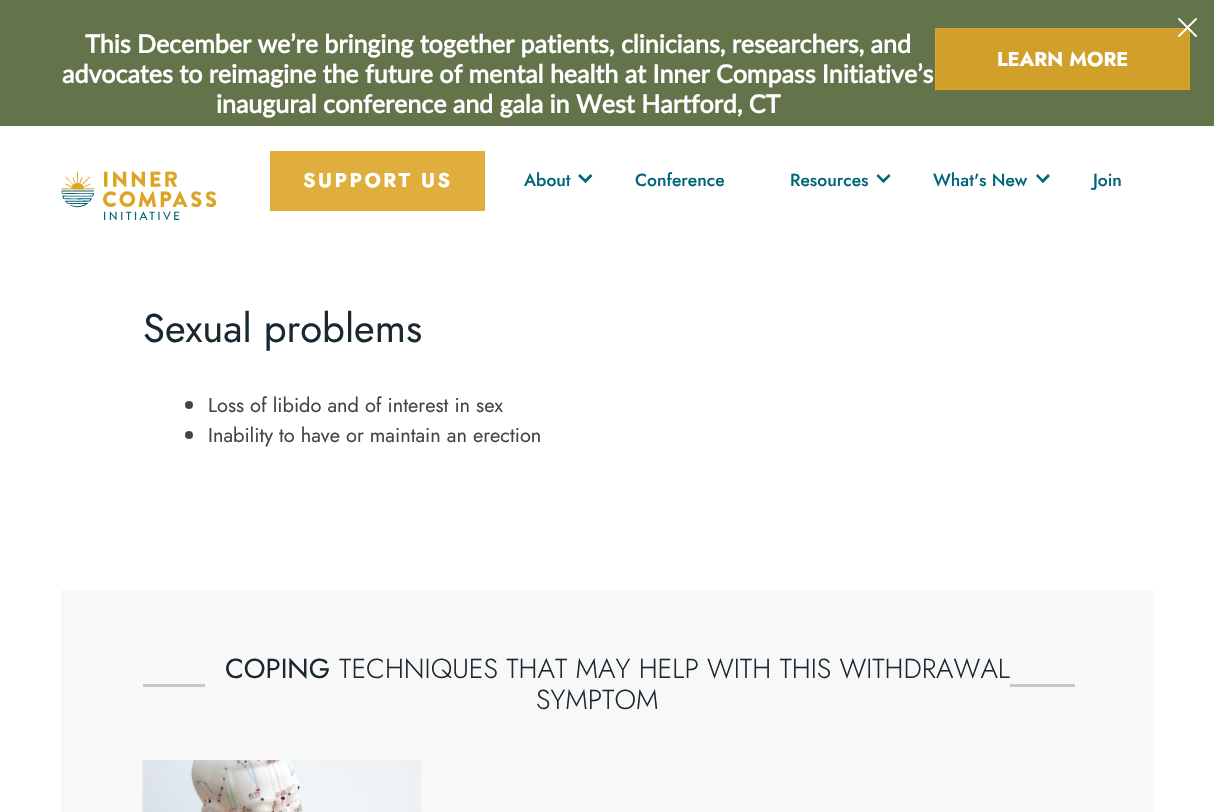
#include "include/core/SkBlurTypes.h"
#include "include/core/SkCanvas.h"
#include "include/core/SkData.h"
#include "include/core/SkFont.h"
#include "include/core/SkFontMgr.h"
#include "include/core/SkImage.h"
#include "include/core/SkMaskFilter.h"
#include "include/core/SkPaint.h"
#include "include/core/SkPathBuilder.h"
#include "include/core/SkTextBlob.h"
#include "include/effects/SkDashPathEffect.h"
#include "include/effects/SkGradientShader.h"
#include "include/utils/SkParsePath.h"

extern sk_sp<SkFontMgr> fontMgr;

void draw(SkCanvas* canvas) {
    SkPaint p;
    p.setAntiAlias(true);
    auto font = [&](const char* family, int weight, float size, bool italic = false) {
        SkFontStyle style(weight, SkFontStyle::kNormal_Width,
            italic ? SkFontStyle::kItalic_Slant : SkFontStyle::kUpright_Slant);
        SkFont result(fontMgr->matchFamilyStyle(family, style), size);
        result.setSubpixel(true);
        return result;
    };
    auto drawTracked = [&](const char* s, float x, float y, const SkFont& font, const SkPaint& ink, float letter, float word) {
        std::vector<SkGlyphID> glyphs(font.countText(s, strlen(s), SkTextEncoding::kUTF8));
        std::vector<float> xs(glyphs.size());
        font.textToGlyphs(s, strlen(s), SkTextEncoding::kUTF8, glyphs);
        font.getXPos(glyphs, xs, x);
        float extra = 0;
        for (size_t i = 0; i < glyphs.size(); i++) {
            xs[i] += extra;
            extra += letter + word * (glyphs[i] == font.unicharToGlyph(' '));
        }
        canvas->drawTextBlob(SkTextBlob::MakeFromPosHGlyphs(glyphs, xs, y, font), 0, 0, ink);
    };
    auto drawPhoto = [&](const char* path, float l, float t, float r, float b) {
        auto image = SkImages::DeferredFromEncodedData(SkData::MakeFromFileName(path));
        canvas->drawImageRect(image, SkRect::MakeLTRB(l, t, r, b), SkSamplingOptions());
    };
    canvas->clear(0xFFFFFFFF);
    p.setColor(0xFF63734A);
    canvas->drawRect(SkRect::MakeLTRB(0, 0, 1214, 126), p);
    p.setColor(0xFFD1A02A);
    canvas->drawRect(SkRect::MakeLTRB(935.5f, 28.5f, 1189.5f, 89.5f), p);
    p.setStyle(SkPaint::kStroke_Style);
    p.setStrokeWidth(1);
    p.setColor(0xFFDCA526);
    canvas->drawRect(SkRect::MakeLTRB(935.5f, 28.5f, 1189.5f, 89.5f), p);
    p.setStrokeWidth(1.9f);
    p.setStrokeCap(SkPaint::kRound_Cap);
    p.setStrokeJoin(SkPaint::kRound_Join);
    p.setColor(0xFFFFFFFF);
    canvas->drawPath(SkPathBuilder().moveTo(1179, 19).lineTo(1196, 36).moveTo(1179, 36).lineTo(1196, 19).detach(), p);
    auto font1 = font("Lato", 700, 25);
    p.setStyle(SkPaint::kFill_Style);
    {
        const struct { const char* s; float x, y; } items[] = {
            {"This December we’re bringing together patients, clinicians, researchers, and", 85, 53},
            {"advocates to reimagine the future of mental health at Inner Compass Initiative’s", 62, 83},
            {"inaugural conference and gala in West Hartford, CT", 216, 113},
        };
        for (auto [s, x, y] : items) {
            canvas->drawString(s, x, y, font1, p);
        }
    }
    auto font2 = font("Jost", 700, 20);
    canvas->drawString("LEARN MORE", 997, 66, font2, p);
    drawPhoto("media/1.png", 61, 171, 216, 220);
    p.setColor(0xFFE0AE3C);
    canvas->drawRect(SkRect::MakeLTRB(270, 151, 485, 211), p);
    p.setColor(0xFFFFFFFF);
    drawTracked("SUPPORT US", 303, 187, font2, p, 2.5f, 0);
    auto font3 = font("Jost", 500, 17.5f);
    p.setColor(0xFF006679);
    canvas->drawString("About", 524, 186, font3, p);
    canvas->drawPath(SkPathBuilder().moveTo(590.5f, 174).lineTo(592.5f, 176).lineTo(585.5f, 183).lineTo(583.5f, 181).close().detach(), p);
    canvas->drawPath(SkPathBuilder().moveTo(580, 174).lineTo(587, 181).lineTo(585.5f, 183).lineTo(578, 176).close().detach(), p);
    canvas->drawString("Conference", 635, 186, font3, p);
    canvas->drawString("Resources", 790, 186, font3, p);
    canvas->drawPath(SkPathBuilder().moveTo(889, 174).lineTo(890.5f, 176).lineTo(883.5f, 183).lineTo(881.5f, 181).close().detach(), p);
    canvas->drawPath(SkPathBuilder().moveTo(878, 174).lineTo(885, 181).lineTo(883.5f, 183).lineTo(876.5f, 176).close().detach(), p);
    canvas->drawString("What's New", 933, 186, font3, p);
    canvas->drawPath(SkPathBuilder().moveTo(1048, 174).lineTo(1050, 176).lineTo(1043, 183).lineTo(1041, 181).close().detach(), p);
    canvas->drawPath(SkPathBuilder().moveTo(1037.5f, 174).lineTo(1044.5f, 181).lineTo(1043, 183).lineTo(1036, 176).close().detach(), p);
    canvas->drawString("Join", 1093, 186, font3, p);
    auto font4 = font("Jost", 400, 40);
    p.setColor(0xFF1A2930);
    canvas->drawString("Sexual problems", 143, 342, font4, p);
    p.setColor(0xFF444444);
    canvas->drawCircle(189, 405, 4, p);
    auto font5 = font("Jost", 400, 20);
    canvas->drawString("Loss of libido and of interest in sex", 208, 412, font5, p);
    canvas->drawCircle(189, 435, 4, p);
    canvas->drawString("Inability to have or maintain an erection", 208, 442, font5, p);
    p.setColor(0xFFF8F8F8);
    canvas->drawRect(SkRect::MakeLTRB(61, 590, 1154, 812), p);
    auto font6 = font("Jost", 400, 27.5f);
    p.setColor(0xFF1A2930);
    canvas->drawString("COPING", 225, 678, font6, p);
    auto font7 = font("Jost", 300, 27.5f);
    canvas->drawString("TECHNIQUES THAT MAY HELP WITH THIS WITHDRAWAL", 339, 678, font7, p);
    {
        const struct { float l, t, r, b; SkColor color; } items[] = {
            {143, 684, 1075, 687, 0xFFC9C9C9},
            {205, 684, 498, 687, 0xFFF8F8F8},
            {498, 684, 506, 688, 0xFFF8F8F8},
            {699, 684, 706, 688, 0xFFF8F8F8},
            {706, 684, 771, 687, 0xFFF8F8F8},
            {771, 684, 779, 688, 0xFFF8F8F8},
            {779, 684, 831, 687, 0xFFF8F8F8},
            {831, 684, 839, 688, 0xFFF8F8F8},
            {839, 684, 1010, 687, 0xFFF8F8F8},
        };
        for (auto [l, t, r, b, color] : items) {
            p.setColor(color);
            canvas->drawRect(SkRect::MakeLTRB(l, t, r, b), p);
        }
    }
    p.setColor(0xFF1A2930);
    canvas->drawString("SYMPTOM", 536, 709, font7, p);
    {
        const struct { float l, t, r, b; SkColor color; } items[] = {
            {506, 684, 568, 687, 0xFFF8F8F8},
            {568, 684, 575, 688, 0xFFF8F8F8},
            {575, 684, 699, 687, 0xFFF8F8F8},
        };
        for (auto [l, t, r, b, color] : items) {
            p.setColor(color);
            canvas->drawRect(SkRect::MakeLTRB(l, t, r, b), p);
        }
    }
    drawPhoto("media/2.png", 142, 760, 421, 812);
}
